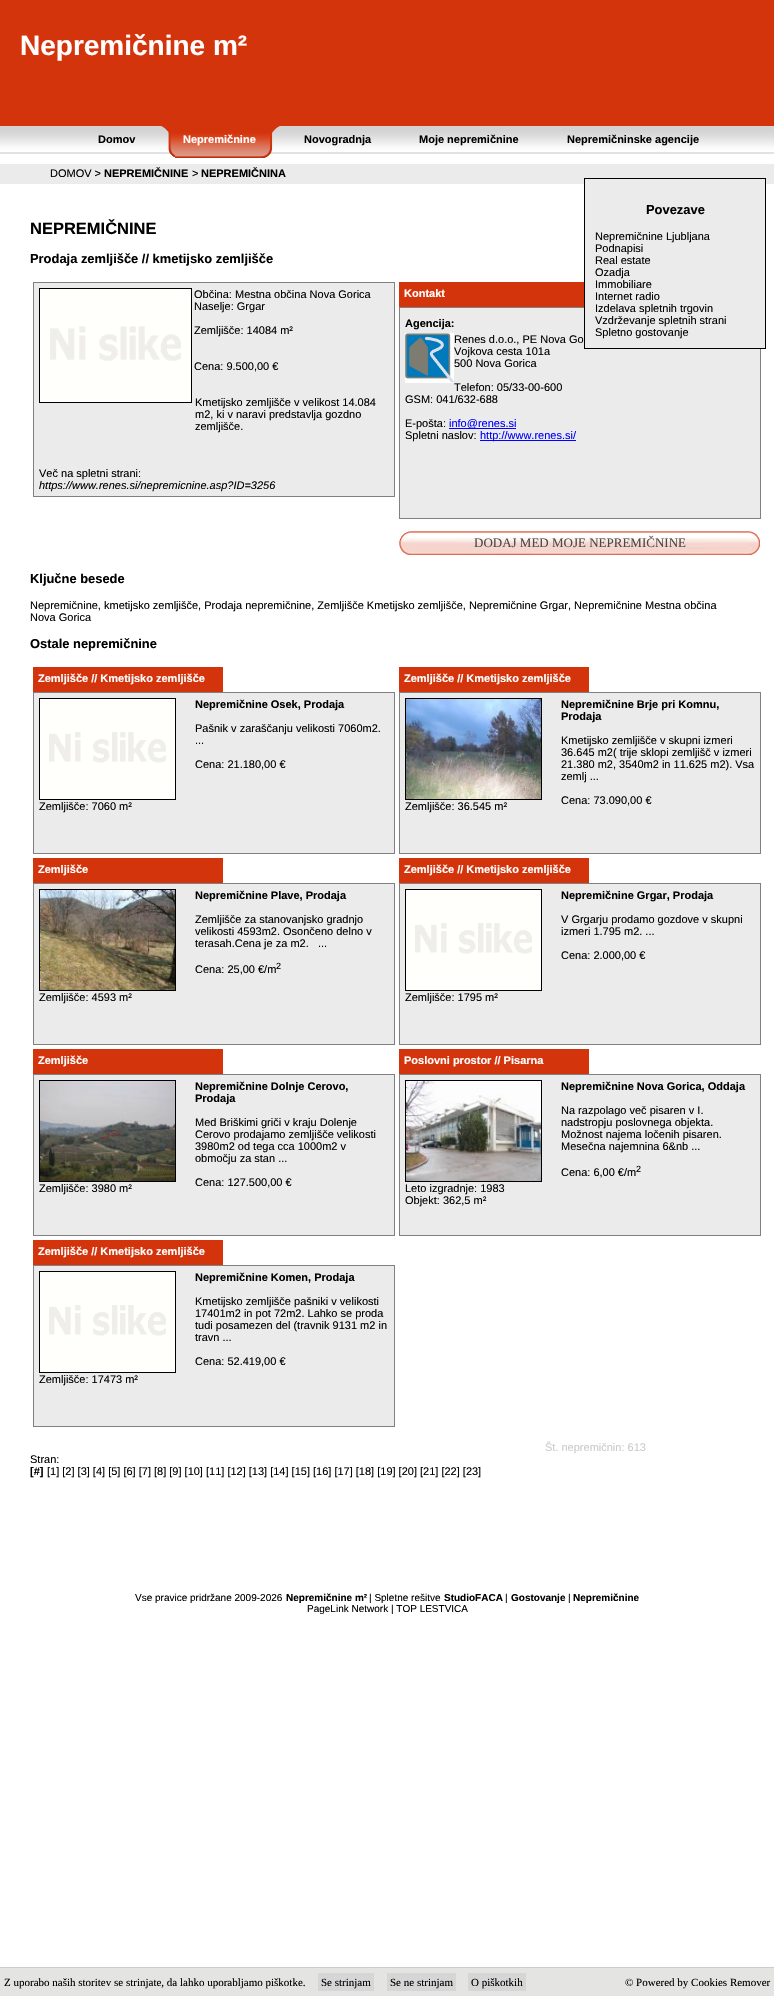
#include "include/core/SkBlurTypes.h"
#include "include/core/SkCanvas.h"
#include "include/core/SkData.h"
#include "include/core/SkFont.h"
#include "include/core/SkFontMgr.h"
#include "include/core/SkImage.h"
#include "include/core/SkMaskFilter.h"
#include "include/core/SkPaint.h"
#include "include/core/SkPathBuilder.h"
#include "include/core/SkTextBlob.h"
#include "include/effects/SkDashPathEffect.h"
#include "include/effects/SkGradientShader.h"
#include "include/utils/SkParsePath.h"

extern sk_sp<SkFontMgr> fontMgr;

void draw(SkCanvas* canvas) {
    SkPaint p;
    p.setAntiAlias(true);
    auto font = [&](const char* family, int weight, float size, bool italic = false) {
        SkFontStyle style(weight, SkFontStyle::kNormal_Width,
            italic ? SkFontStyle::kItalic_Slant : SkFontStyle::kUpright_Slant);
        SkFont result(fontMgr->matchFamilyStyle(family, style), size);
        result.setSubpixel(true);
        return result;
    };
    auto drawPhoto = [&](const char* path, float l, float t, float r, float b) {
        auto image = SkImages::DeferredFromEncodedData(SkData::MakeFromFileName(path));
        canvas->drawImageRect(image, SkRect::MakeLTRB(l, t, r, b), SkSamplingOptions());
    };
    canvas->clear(0xFFFFFFFF);
    p.setColor(0xFFD4340C);
    canvas->drawRect(SkRect::MakeLTRB(0, 0, 774, 117), p);
    auto font1 = font("Liberation Sans", 700, 28);
    p.setColor(0xFFFFFFFF);
    canvas->drawString("Nepremičnine m²", 20, 55, font1, p);
    drawPhoto("media/1.png", 0, 117, 774, 154);
    auto font2 = font("Liberation Sans", 700, 11);
    p.setColor(0xFF000000);
    canvas->drawString("Domov", 98, 143, font2, p);
    drawPhoto("media/2.png", 161, 126, 175, 157);
    drawPhoto("media/3.png", 175, 126, 280, 158);
    p.setColor(0xFFFFFFFF);
    canvas->drawString("Nepremičnine", 183, 143, font2, p);
    p.setColor(0xFF000000);
    {
        const struct { const char* s; float x, y; } items[] = {
            {"Novogradnja", 304, 143},
            {"Moje nepremičnine", 419, 143},
            {"Nepremičninske agencije", 567, 143},
        };
        for (auto [s, x, y] : items) {
            canvas->drawString(s, x, y, font2, p);
        }
    }
    p.setColor(0xFFEBEBEB);
    canvas->drawRect(SkRect::MakeLTRB(0, 164, 774, 184), p);
    auto font3 = font("Liberation Sans", 400, 11);
    p.setColor(0xFF000000);
    canvas->drawString("DOMOV >", 50, 177, font3, p);
    canvas->drawString("NEPREMIČNINE", 104, 177, font2, p);
    canvas->drawString(">", 192, 177, font3, p);
    canvas->drawString("NEPREMIČNINA", 201, 177, font2, p);
    p.setColor(0xFFEBEBEB);
    canvas->drawRect(SkRect::MakeLTRB(399.5f, 307.5f, 760.5f, 518.5f), p);
    p.setStyle(SkPaint::kStroke_Style);
    p.setStrokeWidth(1);
    p.setColor(0xFF808080);
    canvas->drawRect(SkRect::MakeLTRB(399.5f, 307.5f, 760.5f, 518.5f), p);
    p.setStyle(SkPaint::kFill_Style);
    p.setColor(0xFFEBEBEB);
    canvas->drawRect(SkRect::MakeLTRB(585, 184, 765, 348), p);
    p.setStyle(SkPaint::kStroke_Style);
    p.setColor(0xFF000000);
    canvas->drawRect(SkRect::MakeLTRB(584.5f, 178.5f, 765.5f, 348.5f), p);
    auto font4 = font("Liberation Sans", 700, 12.9f);
    p.setStyle(SkPaint::kFill_Style);
    canvas->drawString("Povezave", 646, 214, font4, p);
    {
        const struct { const char* s; float x, y; } items[] = {
            {"Nepremičnine Ljubljana", 595, 240},
            {"Podnapisi", 595, 252},
            {"Real estate", 595, 264},
            {"Ozadja", 595, 276},
            {"Immobiliare", 595, 288},
            {"Internet radio", 595, 300},
            {"Izdelava spletnih trgovin", 595, 312},
            {"Vzdrževanje spletnih strani", 595, 324},
            {"Spletno gostovanje", 595, 336},
        };
        for (auto [s, x, y] : items) {
            canvas->drawString(s, x, y, font3, p);
        }
    }
    auto font5 = font("Liberation Sans", 700, 16.5f);
    canvas->drawString("NEPREMIČNINE", 30, 234, font5, p);
    canvas->drawString("Prodaja zemljišče // kmetijsko zemljišče", 30, 263, font4, p);
    p.setColor(0xFFEBEBEB);
    canvas->drawRect(SkRect::MakeLTRB(33.5f, 282.5f, 394.5f, 496.5f), p);
    p.setStyle(SkPaint::kStroke_Style);
    p.setColor(0xFF808080);
    canvas->drawRect(SkRect::MakeLTRB(33.5f, 282.5f, 394.5f, 496.5f), p);
    p.setColor(0xFF000000);
    canvas->drawRect(SkRect::MakeLTRB(39.5f, 288.5f, 191.5f, 402.5f), p);
    drawPhoto("media/4.png", 40, 289, 191, 402);
    p.setStyle(SkPaint::kFill_Style);
    {
        const struct { const char* s; float x, y; } items[] = {
            {"Občina: Mestna občina Nova Gorica", 194, 298},
            {"Naselje: Grgar", 194, 310},
            {"Zemljišče: 14084 m²", 194, 334},
            {"Cena: 9.500,00 €", 194, 370},
            {"Kmetijsko zemljišče v velikost 14.084", 195, 406},
            {"m2, ki v naravi predstavlja gozdno", 195, 418},
            {"zemljišče.", 195, 430},
            {"Več na spletni strani:", 39, 477},
        };
        for (auto [s, x, y] : items) {
            canvas->drawString(s, x, y, font3, p);
        }
    }
    auto font6 = font("Liberation Sans", 400, 11, true);
    canvas->drawString("https://www.renes.si/nepremicnine.asp?ID=3256", 39, 489, font6, p);
    p.setColor(0xFFD4340C);
    canvas->drawRect(SkRect::MakeLTRB(399, 282, 584, 307), p);
    p.setColor(0xFFFFFFFF);
    canvas->drawString("Kontakt", 404, 297, font2, p);
    p.setColor(0xFF000000);
    canvas->drawString("Agencija:", 405, 327, font2, p);
    drawPhoto("media/5.png", 405, 333, 454, 383);
    {
        const struct { const char* s; float x, y; } items[] = {
            {"Renes d.o.o., PE Nova Go", 454, 343},
            {"Vojkova cesta 101a", 454, 355},
            {"500 Nova Gorica", 454, 367},
            {"Telefon: 05/33-00-600", 454, 391},
            {"GSM: 041/632-688", 405, 403},
            {"E-pošta:", 405, 427},
        };
        for (auto [s, x, y] : items) {
            canvas->drawString(s, x, y, font3, p);
        }
    }
    p.setColor(0xFF0000FF);
    canvas->drawRect(SkRect::MakeLTRB(449, 428, 516, 429), p);
    canvas->drawString("info@renes.si", 449, 427, font3, p);
    p.setColor(0xFF000000);
    canvas->drawString("Spletni naslov:", 405, 439, font3, p);
    p.setColor(0xFF0000FF);
    canvas->drawRect(SkRect::MakeLTRB(480, 440, 576, 441), p);
    canvas->drawString("http://www.renes.si/", 480, 439, font3, p);
    drawPhoto("media/6.png", 399, 531, 410, 555);
    drawPhoto("media/7.png", 410, 531, 760, 555);
    auto font7 = font("Liberation Serif", 400, 13);
    p.setColor(0xFF494949);
    canvas->drawString("DODAJ MED MOJE NEPREMIČNINE", 474, 547, font7, p);
    p.setColor(0xFF000000);
    canvas->drawString("Ključne besede", 30, 583, font4, p);
    canvas->drawString("Nepremičnine, kmetijsko zemljišče, Prodaja nepremičnine, Zemljišče Kmetijsko zemljišče, Nepremičnine Grgar, Nepremičnine Mestna občina", 30, 609, font3, p);
    canvas->drawString("Nova Gorica", 30, 621, font3, p);
    canvas->drawString("Ostale nepremičnine", 30, 648, font4, p);
    p.setColor(0xFFD4340C);
    canvas->drawRect(SkRect::MakeLTRB(33, 667, 223, 692), p);
    p.setColor(0xFFFFFFFF);
    canvas->drawString("Zemljišče // Kmetijsko zemljišče", 38, 682, font2, p);
    p.setColor(0xFFEBEBEB);
    canvas->drawRect(SkRect::MakeLTRB(33.5f, 692.5f, 394.5f, 853.5f), p);
    p.setStyle(SkPaint::kStroke_Style);
    p.setColor(0xFF808080);
    canvas->drawRect(SkRect::MakeLTRB(33.5f, 692.5f, 394.5f, 853.5f), p);
    p.setStyle(SkPaint::kFill_Style);
    p.setColor(0xFF000000);
    canvas->drawString("Nepremičnine Osek, Prodaja", 195, 708, font2, p);
    {
        const struct { const char* s; float x, y; } items[] = {
            {"Pašnik v zaraščanju velikosti 7060m2.", 195, 732},
            {"...", 195, 744},
            {"Cena: 21.180,00 €", 195, 768},
        };
        for (auto [s, x, y] : items) {
            canvas->drawString(s, x, y, font3, p);
        }
    }
    p.setStyle(SkPaint::kStroke_Style);
    canvas->drawRect(SkRect::MakeLTRB(39.5f, 698.5f, 175.5f, 799.5f), p);
    drawPhoto("media/8.png", 40, 699, 175, 799);
    p.setStyle(SkPaint::kFill_Style);
    canvas->drawString("Zemljišče: 7060 m²", 39, 810, font3, p);
    p.setColor(0xFFD4340C);
    canvas->drawRect(SkRect::MakeLTRB(399, 667, 589, 692), p);
    p.setColor(0xFFFFFFFF);
    canvas->drawString("Zemljišče // Kmetijsko zemljišče", 404, 682, font2, p);
    p.setColor(0xFFEBEBEB);
    canvas->drawRect(SkRect::MakeLTRB(399.5f, 692.5f, 760.5f, 853.5f), p);
    p.setStyle(SkPaint::kStroke_Style);
    p.setColor(0xFF808080);
    canvas->drawRect(SkRect::MakeLTRB(399.5f, 692.5f, 760.5f, 853.5f), p);
    p.setStyle(SkPaint::kFill_Style);
    p.setColor(0xFF000000);
    canvas->drawString("Nepremičnine Brje pri Komnu,", 561, 708, font2, p);
    canvas->drawString("Prodaja", 561, 720, font2, p);
    {
        const struct { const char* s; float x, y; } items[] = {
            {"Kmetijsko zemljišče v skupni izmeri", 561, 744},
            {"36.645 m2( trije sklopi zemljišč v izmeri", 561, 756},
            {"21.380 m2, 3540m2 in 11.625 m2). Vsa", 561, 768},
            {"zemlj ...", 561, 780},
            {"Cena: 73.090,00 €", 561, 804},
        };
        for (auto [s, x, y] : items) {
            canvas->drawString(s, x, y, font3, p);
        }
    }
    p.setStyle(SkPaint::kStroke_Style);
    canvas->drawRect(SkRect::MakeLTRB(405.5f, 698.5f, 541.5f, 799.5f), p);
    drawPhoto("media/9.png", 406, 699, 541, 799);
    p.setStyle(SkPaint::kFill_Style);
    canvas->drawString("Zemljišče: 36.545 m²", 405, 810, font3, p);
    p.setColor(0xFFD4340C);
    canvas->drawRect(SkRect::MakeLTRB(33, 858, 223, 883), p);
    p.setColor(0xFFFFFFFF);
    canvas->drawString("Zemljišče", 38, 873, font2, p);
    p.setColor(0xFFEBEBEB);
    canvas->drawRect(SkRect::MakeLTRB(33.5f, 883.5f, 394.5f, 1044.5f), p);
    p.setStyle(SkPaint::kStroke_Style);
    p.setColor(0xFF808080);
    canvas->drawRect(SkRect::MakeLTRB(33.5f, 883.5f, 394.5f, 1044.5f), p);
    p.setStyle(SkPaint::kFill_Style);
    p.setColor(0xFF000000);
    canvas->drawString("Nepremičnine Plave, Prodaja", 195, 899, font2, p);
    {
        const struct { const char* s; float x, y; } items[] = {
            {"Zemljišče za stanovanjsko gradnjo", 195, 923},
            {"velikosti 4593m2. Osončeno delno v", 195, 935},
            {"terasah.Cena je za m2.", 195, 947},
            {"...", 318, 947},
            {"Cena: 25,00 €/m", 195, 973},
        };
        for (auto [s, x, y] : items) {
            canvas->drawString(s, x, y, font3, p);
        }
    }
    auto font8 = font("Liberation Sans", 400, 9);
    canvas->drawString("2", 276, 969, font8, p);
    p.setStyle(SkPaint::kStroke_Style);
    canvas->drawRect(SkRect::MakeLTRB(39.5f, 889.5f, 175.5f, 990.5f), p);
    drawPhoto("media/10.png", 40, 890, 175, 990);
    p.setStyle(SkPaint::kFill_Style);
    canvas->drawString("Zemljišče: 4593 m²", 39, 1001, font3, p);
    p.setColor(0xFFD4340C);
    canvas->drawRect(SkRect::MakeLTRB(399, 858, 589, 883), p);
    p.setColor(0xFFFFFFFF);
    canvas->drawString("Zemljišče // Kmetijsko zemljišče", 404, 873, font2, p);
    p.setColor(0xFFEBEBEB);
    canvas->drawRect(SkRect::MakeLTRB(399.5f, 883.5f, 760.5f, 1044.5f), p);
    p.setStyle(SkPaint::kStroke_Style);
    p.setColor(0xFF808080);
    canvas->drawRect(SkRect::MakeLTRB(399.5f, 883.5f, 760.5f, 1044.5f), p);
    p.setStyle(SkPaint::kFill_Style);
    p.setColor(0xFF000000);
    canvas->drawString("Nepremičnine Grgar, Prodaja", 561, 899, font2, p);
    {
        const struct { const char* s; float x, y; } items[] = {
            {"V Grgarju prodamo gozdove v skupni", 561, 923},
            {"izmeri 1.795 m2. ...", 561, 935},
            {"Cena: 2.000,00 €", 561, 959},
        };
        for (auto [s, x, y] : items) {
            canvas->drawString(s, x, y, font3, p);
        }
    }
    p.setStyle(SkPaint::kStroke_Style);
    canvas->drawRect(SkRect::MakeLTRB(405.5f, 889.5f, 541.5f, 990.5f), p);
    drawPhoto("media/8.png", 406, 890, 541, 990);
    p.setStyle(SkPaint::kFill_Style);
    canvas->drawString("Zemljišče: 1795 m²", 405, 1001, font3, p);
    p.setColor(0xFFD4340C);
    canvas->drawRect(SkRect::MakeLTRB(33, 1049, 223, 1074), p);
    p.setColor(0xFFFFFFFF);
    canvas->drawString("Zemljišče", 38, 1064, font2, p);
    p.setColor(0xFFEBEBEB);
    canvas->drawRect(SkRect::MakeLTRB(33.5f, 1074.5f, 394.5f, 1235.5f), p);
    p.setStyle(SkPaint::kStroke_Style);
    p.setColor(0xFF808080);
    canvas->drawRect(SkRect::MakeLTRB(33.5f, 1074.5f, 394.5f, 1235.5f), p);
    p.setStyle(SkPaint::kFill_Style);
    p.setColor(0xFF000000);
    canvas->drawString("Nepremičnine Dolnje Cerovo,", 195, 1090, font2, p);
    canvas->drawString("Prodaja", 195, 1102, font2, p);
    {
        const struct { const char* s; float x, y; } items[] = {
            {"Med Briškimi griči v kraju Dolenje", 195, 1126},
            {"Cerovo prodajamo zemljišče velikosti", 195, 1138},
            {"3980m2 od tega cca 1000m2 v", 195, 1150},
            {"območju za stan ...", 195, 1162},
            {"Cena: 127.500,00 €", 195, 1186},
        };
        for (auto [s, x, y] : items) {
            canvas->drawString(s, x, y, font3, p);
        }
    }
    p.setStyle(SkPaint::kStroke_Style);
    canvas->drawRect(SkRect::MakeLTRB(39.5f, 1080.5f, 175.5f, 1181.5f), p);
    drawPhoto("media/11.png", 40, 1081, 175, 1181);
    p.setStyle(SkPaint::kFill_Style);
    canvas->drawString("Zemljišče: 3980 m²", 39, 1192, font3, p);
    p.setColor(0xFFD4340C);
    canvas->drawRect(SkRect::MakeLTRB(399, 1049, 589, 1074), p);
    p.setColor(0xFFFFFFFF);
    canvas->drawString("Poslovni prostor // Pisarna", 404, 1064, font2, p);
    p.setColor(0xFFEBEBEB);
    canvas->drawRect(SkRect::MakeLTRB(399.5f, 1074.5f, 760.5f, 1235.5f), p);
    p.setStyle(SkPaint::kStroke_Style);
    p.setColor(0xFF808080);
    canvas->drawRect(SkRect::MakeLTRB(399.5f, 1074.5f, 760.5f, 1235.5f), p);
    p.setStyle(SkPaint::kFill_Style);
    p.setColor(0xFF000000);
    canvas->drawString("Nepremičnine Nova Gorica, Oddaja", 561, 1090, font2, p);
    {
        const struct { const char* s; float x, y; } items[] = {
            {"Na razpolago več pisaren v I.", 561, 1114},
            {"nadstropju poslovnega objekta.", 561, 1126},
            {"Možnost najema ločenih pisaren.", 561, 1138},
            {"Mesečna najemnina 6&nb ...", 561, 1150},
            {"Cena: 6,00 €/m", 561, 1176},
        };
        for (auto [s, x, y] : items) {
            canvas->drawString(s, x, y, font3, p);
        }
    }
    canvas->drawString("2", 636, 1172, font8, p);
    p.setStyle(SkPaint::kStroke_Style);
    canvas->drawRect(SkRect::MakeLTRB(405.5f, 1080.5f, 541.5f, 1181.5f), p);
    drawPhoto("media/12.png", 406, 1081, 541, 1181);
    p.setStyle(SkPaint::kFill_Style);
    canvas->drawString("Leto izgradnje: 1983", 405, 1192, font3, p);
    canvas->drawString("Objekt: 362,5 m²", 405, 1204, font3, p);
    p.setColor(0xFFD4340C);
    canvas->drawRect(SkRect::MakeLTRB(33, 1240, 223, 1265), p);
    p.setColor(0xFFFFFFFF);
    canvas->drawString("Zemljišče // Kmetijsko zemljišče", 38, 1255, font2, p);
    p.setColor(0xFFEBEBEB);
    canvas->drawRect(SkRect::MakeLTRB(33.5f, 1265.5f, 394.5f, 1426.5f), p);
    p.setStyle(SkPaint::kStroke_Style);
    p.setColor(0xFF808080);
    canvas->drawRect(SkRect::MakeLTRB(33.5f, 1265.5f, 394.5f, 1426.5f), p);
    p.setStyle(SkPaint::kFill_Style);
    p.setColor(0xFF000000);
    canvas->drawString("Nepremičnine Komen, Prodaja", 195, 1281, font2, p);
    {
        const struct { const char* s; float x, y; } items[] = {
            {"Kmetijsko zemljišče pašniki v velikosti", 195, 1305},
            {"17401m2 in pot 72m2. Lahko se proda", 195, 1317},
            {"tudi posamezen del (travnik 9131 m2 in", 195, 1329},
            {"travn ...", 195, 1341},
            {"Cena: 52.419,00 €", 195, 1365},
        };
        for (auto [s, x, y] : items) {
            canvas->drawString(s, x, y, font3, p);
        }
    }
    p.setStyle(SkPaint::kStroke_Style);
    canvas->drawRect(SkRect::MakeLTRB(39.5f, 1271.5f, 175.5f, 1372.5f), p);
    drawPhoto("media/8.png", 40, 1272, 175, 1372);
    p.setStyle(SkPaint::kFill_Style);
    canvas->drawString("Zemljišče: 17473 m²", 39, 1383, font3, p);
    p.setColor(0xFFCCCCCC);
    canvas->drawString("Št. nepremičnin: 613", 545, 1451, font3, p);
    p.setColor(0xFF000000);
    canvas->drawString("Stran:", 30, 1463, font3, p);
    canvas->drawString("[#]", 30, 1475, font2, p);
    canvas->drawString("[1] [2] [3] [4] [5] [6] [7] [8] [9] [10] [11] [12] [13] [14] [15] [16] [17] [18] [19] [20] [21] [22] [23]", 47, 1475, font3, p);
    auto font9 = font("Liberation Sans", 400, 10);
    canvas->drawString("Vse pravice pridržane 2009-2026", 135, 1601, font9, p);
    auto font10 = font("Liberation Sans", 700, 10);
    canvas->drawString("Nepremičnine m²", 286, 1601, font10, p);
    canvas->drawString("| Spletne rešitve", 369, 1601, font9, p);
    canvas->drawString("StudioFACA", 444, 1601, font10, p);
    canvas->drawString("|", 505, 1601, font9, p);
    canvas->drawString("Gostovanje", 511, 1601, font10, p);
    canvas->drawString("|", 568, 1601, font9, p);
    canvas->drawString("Nepremičnine", 573, 1601, font10, p);
    canvas->drawString("PageLink Network | TOP LESTVICA", 307, 1612, font9, p);
    p.setColor(0xFFE4E4E3);
    canvas->drawRect(SkRect::MakeLTRB(0, 1968, 774, 1996), p);
    p.setColor(0xFFCCCCCC);
    canvas->drawRect(SkRect::MakeLTRB(0, 1967, 774, 1968), p);
    auto font11 = font("Liberation Serif", 400, 11);
    p.setColor(0xFF000000);
    canvas->drawString("Z uporabo naših storitev se strinjate, da lahko uporabljamo piškotke.", 4, 1986, font11, p);
    p.setColor(0xFFD6D6D6);
    canvas->drawRect(SkRect::MakeLTRB(318, 1973, 374, 1991), p);
    p.setColor(0xFF000000);
    canvas->drawString("Se strinjam", 321, 1986, font11, p);
    p.setColor(0xFFD6D6D6);
    canvas->drawRect(SkRect::MakeLTRB(387, 1973, 456, 1991), p);
    p.setColor(0xFF000000);
    canvas->drawString("Se ne strinjam", 390, 1986, font11, p);
    p.setColor(0xFFD6D6D6);
    canvas->drawRect(SkRect::MakeLTRB(468, 1973, 526, 1991), p);
    p.setColor(0xFF000000);
    canvas->drawString("O piškotkih", 471, 1986, font11, p);
    canvas->drawString("© Powered by Cookies Remover", 625, 1986, font11, p);
}
